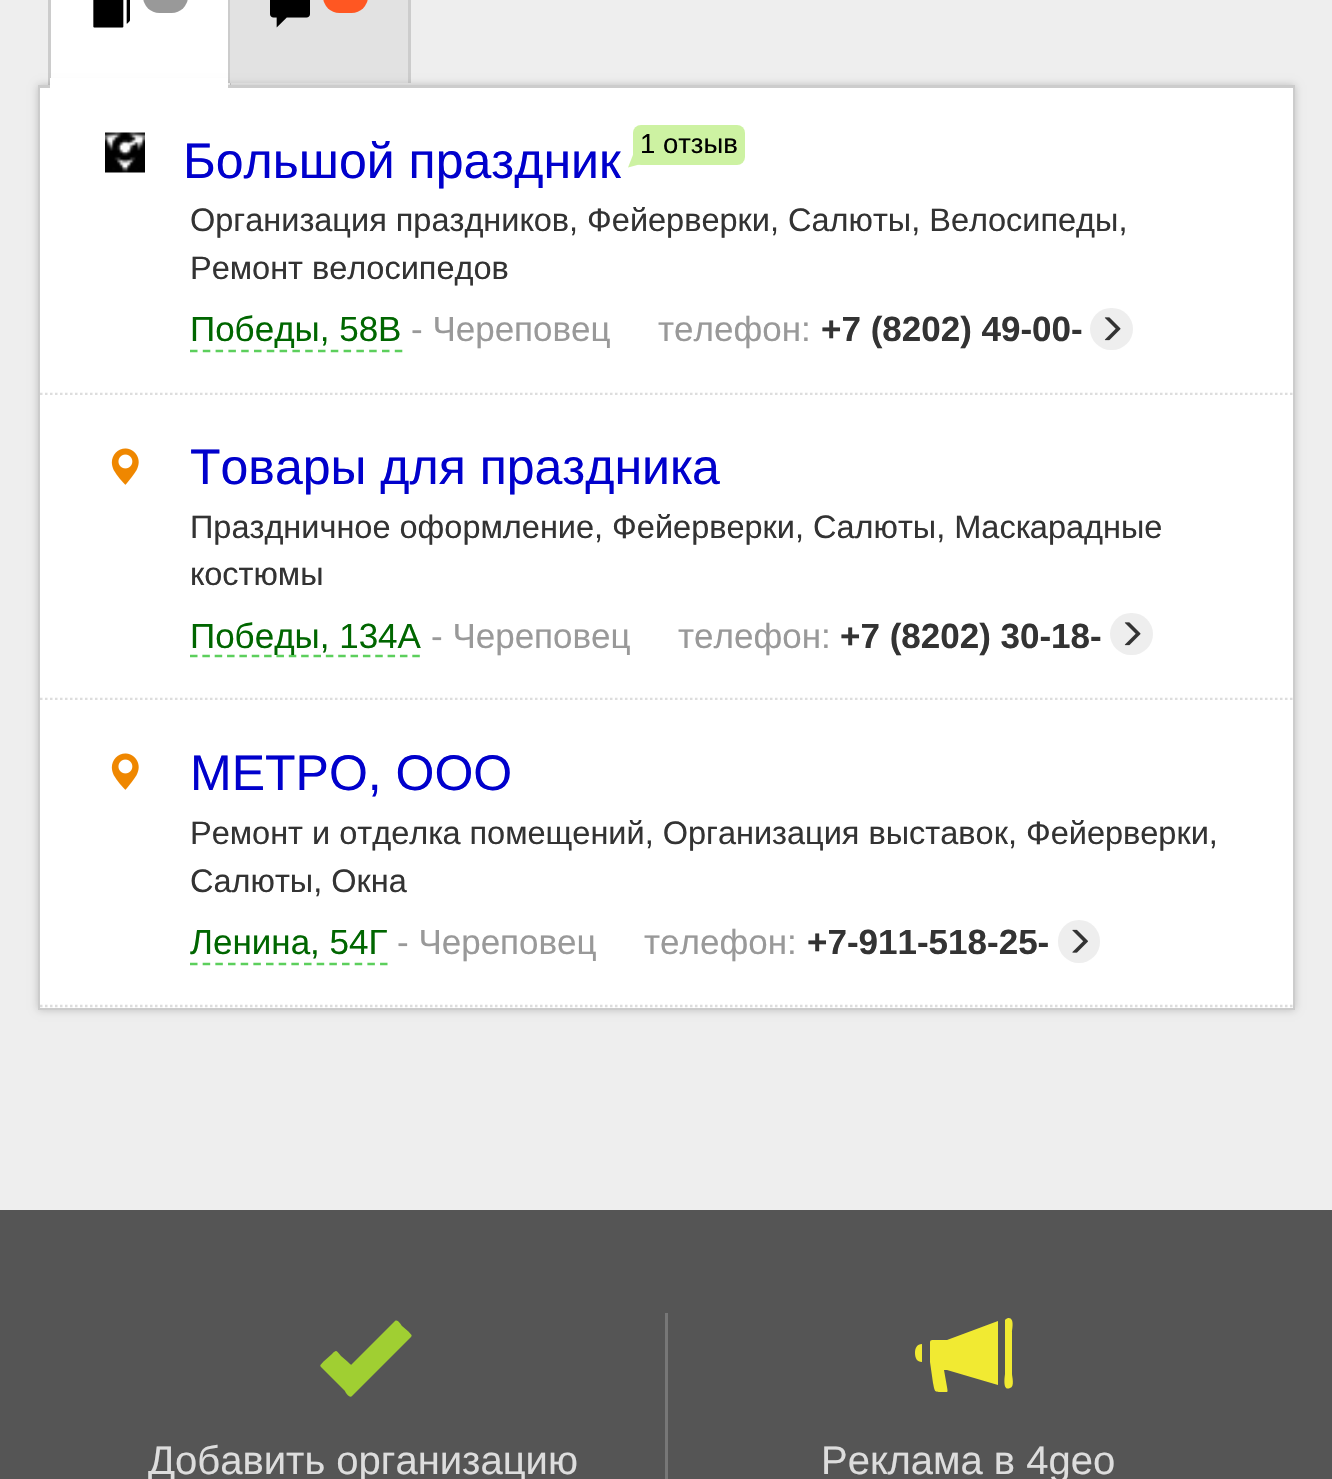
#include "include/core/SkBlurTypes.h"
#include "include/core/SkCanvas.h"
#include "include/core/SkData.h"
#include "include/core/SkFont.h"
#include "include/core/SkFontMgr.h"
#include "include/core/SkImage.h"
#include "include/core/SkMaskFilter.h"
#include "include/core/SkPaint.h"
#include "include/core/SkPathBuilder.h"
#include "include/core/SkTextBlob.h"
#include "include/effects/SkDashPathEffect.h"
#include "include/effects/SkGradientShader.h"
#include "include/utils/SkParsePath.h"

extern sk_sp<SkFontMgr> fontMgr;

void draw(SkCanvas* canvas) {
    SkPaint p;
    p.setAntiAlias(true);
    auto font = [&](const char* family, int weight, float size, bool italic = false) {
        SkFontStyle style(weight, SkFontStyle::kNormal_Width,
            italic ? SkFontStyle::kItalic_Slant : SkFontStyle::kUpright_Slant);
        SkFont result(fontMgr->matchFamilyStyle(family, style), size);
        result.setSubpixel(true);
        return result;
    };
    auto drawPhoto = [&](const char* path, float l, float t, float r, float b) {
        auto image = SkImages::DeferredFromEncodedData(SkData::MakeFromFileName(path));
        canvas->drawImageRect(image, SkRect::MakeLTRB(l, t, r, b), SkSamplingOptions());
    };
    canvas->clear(0xFFEEEEEE);
    {
        const struct { float l, t, r, b; SkColor color; } items[] = {
            {51, 0, 228, 78, 0xFFFFFFFF},
            {228, 0, 231, 85, 0xFFCCCCCC},
            {228, 83, 230, 85, 0xFFFFFFFF},
            {48, 0, 51, 85, 0xFFCCCCCC},
        };
        for (auto [l, t, r, b, color] : items) {
            p.setColor(color);
            canvas->drawRect(SkRect::MakeLTRB(l, t, r, b), p);
        }
    }
    drawPhoto("media/1.png", 93, 0, 130, 28);
    p.setColor(0xFF999999);
    canvas->drawRoundRect(SkRect::MakeLTRB(143, -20, 188, 13), 20, 20, p);
    p.setColor(0xFFE2E2E2);
    canvas->drawRect(SkRect::MakeLTRB(230, 0, 408, 83), p);
    p.setColor(0xFFCCCCCC);
    canvas->drawRect(SkRect::MakeLTRB(408, 0, 411, 83), p);
    p.setColor(0x33000000);
    p.setMaskFilter(SkMaskFilter::MakeBlur(kNormal_SkBlurStyle, 4));
    canvas->drawRect(SkRect::MakeLTRB(38, 85, 1295, 1010), p);
    p.setMaskFilter(nullptr);
    p.setStyle(SkPaint::kStroke_Style);
    p.setStrokeWidth(3);
    p.setColor(0xFFCCCCCC);
    canvas->drawRect(SkRect::MakeLTRB(39.5f, 86.5f, 1293.5f, 1008.5f), p);
    p.setStyle(SkPaint::kFill_Style);
    p.setColor(0xFFFFFFFF);
    canvas->drawRect(SkRect::MakeLTRB(50, 78, 228, 88), p);
    drawPhoto("media/2.png", 270, 0, 310, 28);
    p.setColor(0xFFFF5722);
    canvas->drawRoundRect(SkRect::MakeLTRB(323, -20, 368, 13), 20, 20, p);
    p.setColor(0xFFFFFFFF);
    canvas->drawRect(SkRect::MakeLTRB(40, 88, 1293, 395), p);
    p.setStyle(SkPaint::kStroke_Style);
    p.setStrokeWidth(2.5f);
    p.setColor(0xFFDDDDDD);
    p.setPathEffect(SkDashPathEffect::Make({{2.5f, 2.5f}}, 0));
    canvas->drawPath(SkPathBuilder().moveTo(40, 394).lineTo(1292.5f, 394).detach(), p);
    p.setPathEffect(nullptr);
    drawPhoto("media/3.png", 105, 132, 145, 173);
    auto font1 = font("Liberation Sans", 400, 50);
    p.setStyle(SkPaint::kFill_Style);
    p.setColor(0xFF0000CC);
    canvas->drawString("Большой праздник", 183, 178, font1, p);
    p.setColor(0xFFCDF2A2);
    canvas->drawRoundRect(SkRect::MakeLTRB(633, 125, 745, 165), 8, 8, p);
    canvas->drawPath(SkPathBuilder().moveTo(639.5f, 138.5f).lineTo(663.5f, 132.5f).lineTo(652, 161).lineTo(628, 167.5f).close().detach(), p);
    auto font2 = font("Liberation Sans", 400, 27.5f);
    p.setColor(0xFF000000);
    canvas->drawString("1 отзыв", 640, 153, font2, p);
    auto font3 = font("Liberation Sans", 400, 32.5f);
    p.setColor(0xFF333333);
    canvas->drawString("Организация праздников, Фейерверки, Салюты, Велосипеды,", 190, 231, font3, p);
    canvas->drawString("Ремонт велосипедов", 190, 279, font3, p);
    auto font4 = font("Liberation Sans", 400, 35);
    p.setColor(0xFF006600);
    canvas->drawString("Победы, 58В", 190, 341, font4, p);
    p.setStyle(SkPaint::kStroke_Style);
    p.setColor(0xFF5CCF5C);
    p.setPathEffect(SkDashPathEffect::Make({{7.5f, 5.3f}}, 0));
    canvas->drawPath(SkPathBuilder().moveTo(190, 351).lineTo(402.5f, 351).detach(), p);
    p.setPathEffect(nullptr);
    p.setStyle(SkPaint::kFill_Style);
    p.setColor(0xFF999999);
    canvas->drawString("- Череповец", 411, 341, font4, p);
    canvas->drawString("телефон:", 658, 341, font4, p);
    auto font5 = font("Liberation Sans", 700, 35);
    p.setColor(0xFF333333);
    canvas->drawString("+7 (8202) 49-00-", 821, 341, font5, p);
    p.setColor(0xFFEEEEEE);
    canvas->drawRoundRect(SkRect::MakeLTRB(1090, 308, 1133, 350), 21, 21, p);
    drawPhoto("media/4.png", 1104, 317, 1121, 341);
    p.setColor(0xFFFFFFFF);
    canvas->drawRect(SkRect::MakeLTRB(40, 395, 1293, 700), p);
    p.setStyle(SkPaint::kStroke_Style);
    p.setColor(0xFFDDDDDD);
    p.setPathEffect(SkDashPathEffect::Make({{2.5f, 2.5f}}, 0));
    canvas->drawPath(SkPathBuilder().moveTo(40, 699).lineTo(1292.5f, 699).detach(), p);
    p.setPathEffect(nullptr);
    drawPhoto("media/5.png", 111, 448, 139, 485);
    p.setStyle(SkPaint::kFill_Style);
    p.setColor(0xFF0000CC);
    canvas->drawString("Товары для праздника", 190, 484, font1, p);
    p.setColor(0xFF333333);
    canvas->drawString("Праздничное оформление, Фейерверки, Салюты, Маскарадные", 190, 538, font3, p);
    canvas->drawString("костюмы", 190, 585, font3, p);
    p.setStyle(SkPaint::kStroke_Style);
    p.setColor(0xFF5CCF5C);
    p.setPathEffect(SkDashPathEffect::Make({{7.5f, 4.85f}}, 0));
    canvas->drawPath(SkPathBuilder().moveTo(190, 656).lineTo(420, 656).detach(), p);
    p.setPathEffect(nullptr);
    p.setStyle(SkPaint::kFill_Style);
    p.setColor(0xFF006600);
    canvas->drawString("Победы, 134А", 190, 648, font4, p);
    p.setColor(0xFF999999);
    canvas->drawString("- Череповец", 431, 648, font4, p);
    canvas->drawString("телефон:", 678, 648, font4, p);
    p.setColor(0xFF333333);
    canvas->drawString("+7 (8202) 30-18-", 840, 648, font5, p);
    p.setColor(0xFFEEEEEE);
    canvas->drawRoundRect(SkRect::MakeLTRB(1110, 613, 1153, 655), 21, 21, p);
    drawPhoto("media/4.png", 1124, 622, 1141, 646);
    p.setColor(0xFFFFFFFF);
    canvas->drawRect(SkRect::MakeLTRB(40, 700, 1293, 1008), p);
    p.setStyle(SkPaint::kStroke_Style);
    p.setColor(0xFFDDDDDD);
    p.setPathEffect(SkDashPathEffect::Make({{2.5f, 2.5f}}, 0));
    canvas->drawPath(SkPathBuilder().moveTo(40, 1006).lineTo(1292.5f, 1006).detach(), p);
    p.setPathEffect(nullptr);
    drawPhoto("media/5.png", 111, 753, 139, 790);
    p.setStyle(SkPaint::kFill_Style);
    p.setColor(0xFF0000CC);
    canvas->drawString("МЕТРО, ООО", 190, 790, font1, p);
    p.setColor(0xFF333333);
    canvas->drawString("Ремонт и отделка помещений, Организация выставок, Фейерверки,", 190, 844, font3, p);
    canvas->drawString("Салюты, Окна", 190, 892, font3, p);
    p.setColor(0xFF006600);
    canvas->drawString("Ленина, 54Г", 190, 954, font4, p);
    p.setStyle(SkPaint::kStroke_Style);
    p.setColor(0xFF5CCF5C);
    p.setPathEffect(SkDashPathEffect::Make({{7.5f, 5.17f}}, 0));
    canvas->drawPath(SkPathBuilder().moveTo(190, 964).lineTo(387.5f, 964).detach(), p);
    p.setPathEffect(nullptr);
    p.setStyle(SkPaint::kFill_Style);
    p.setColor(0xFF999999);
    canvas->drawString("- Череповец", 397, 954, font4, p);
    canvas->drawString("телефон:", 644, 954, font4, p);
    p.setColor(0xFF333333);
    canvas->drawString("+7-911-518-25-", 807, 954, font5, p);
    p.setColor(0xFFEEEEEE);
    canvas->drawRoundRect(SkRect::MakeLTRB(1058, 920, 1100, 963), 21, 21, p);
    drawPhoto("media/6.png", 1072, 929, 1088, 953);
    p.setColor(0xFF555555);
    canvas->drawRect(SkRect::MakeLTRB(0, 1210, 1332, 1479), p);
    p.setColor(0xFF777777);
    canvas->drawRect(SkRect::MakeLTRB(665, 1313, 668, 1479), p);
    p.setColor(0xFFA0CF32);
    canvas->drawPath(SkPathBuilder().moveTo(352, 1364).lineTo(395, 1321).cubicTo(398, 1319, 401, 1325, 402, 1326).lineTo(409, 1332).cubicTo(410, 1334, 413, 1335, 411, 1337).lineTo(352, 1396).cubicTo(350, 1399, 345, 1392, 345, 1391).lineTo(321, 1367).cubicTo(319, 1365, 322, 1364, 323, 1362).lineTo(332, 1354).cubicTo(337, 1349, 336, 1351, 341, 1356).lineTo(348, 1362).cubicTo(349, 1363, 351, 1366, 352, 1364).close().detach(), p);
    auto font6 = font("Liberation Sans", 400, 40);
    p.setColor(0xFFDDDDDD);
    canvas->drawString("Добавить организацию", 148, 1474, font6, p);
    p.setColor(0xFFF1EA32);
    canvas->drawPath(SkPathBuilder().moveTo(1006, 1319).lineTo(1008, 1318).cubicTo(1015, 1317, 1012, 1330, 1012, 1332).lineTo(1012, 1374).cubicTo(1012, 1376, 1015, 1387, 1010, 1388).cubicTo(1002, 1392, 1005, 1375, 1005, 1374).lineTo(1005, 1320).close().moveTo(998, 1385).lineTo(947, 1370).lineTo(944, 1370).lineTo(947, 1387).cubicTo(948, 1393, 948, 1392, 943, 1392).cubicTo(934, 1392, 935, 1392, 933, 1383).lineTo(930, 1362).lineTo(930, 1342).cubicTo(930, 1340, 932, 1340, 934, 1340).lineTo(947, 1340).lineTo(998, 1321).close().moveTo(922, 1344).lineTo(922, 1362).cubicTo(917, 1362, 915, 1358, 915, 1353).cubicTo(915, 1348, 917, 1344, 922, 1344).close().detach(), p);
    p.setColor(0xFFDDDDDD);
    canvas->drawString("Реклама в 4geo", 821, 1474, font6, p);
}
